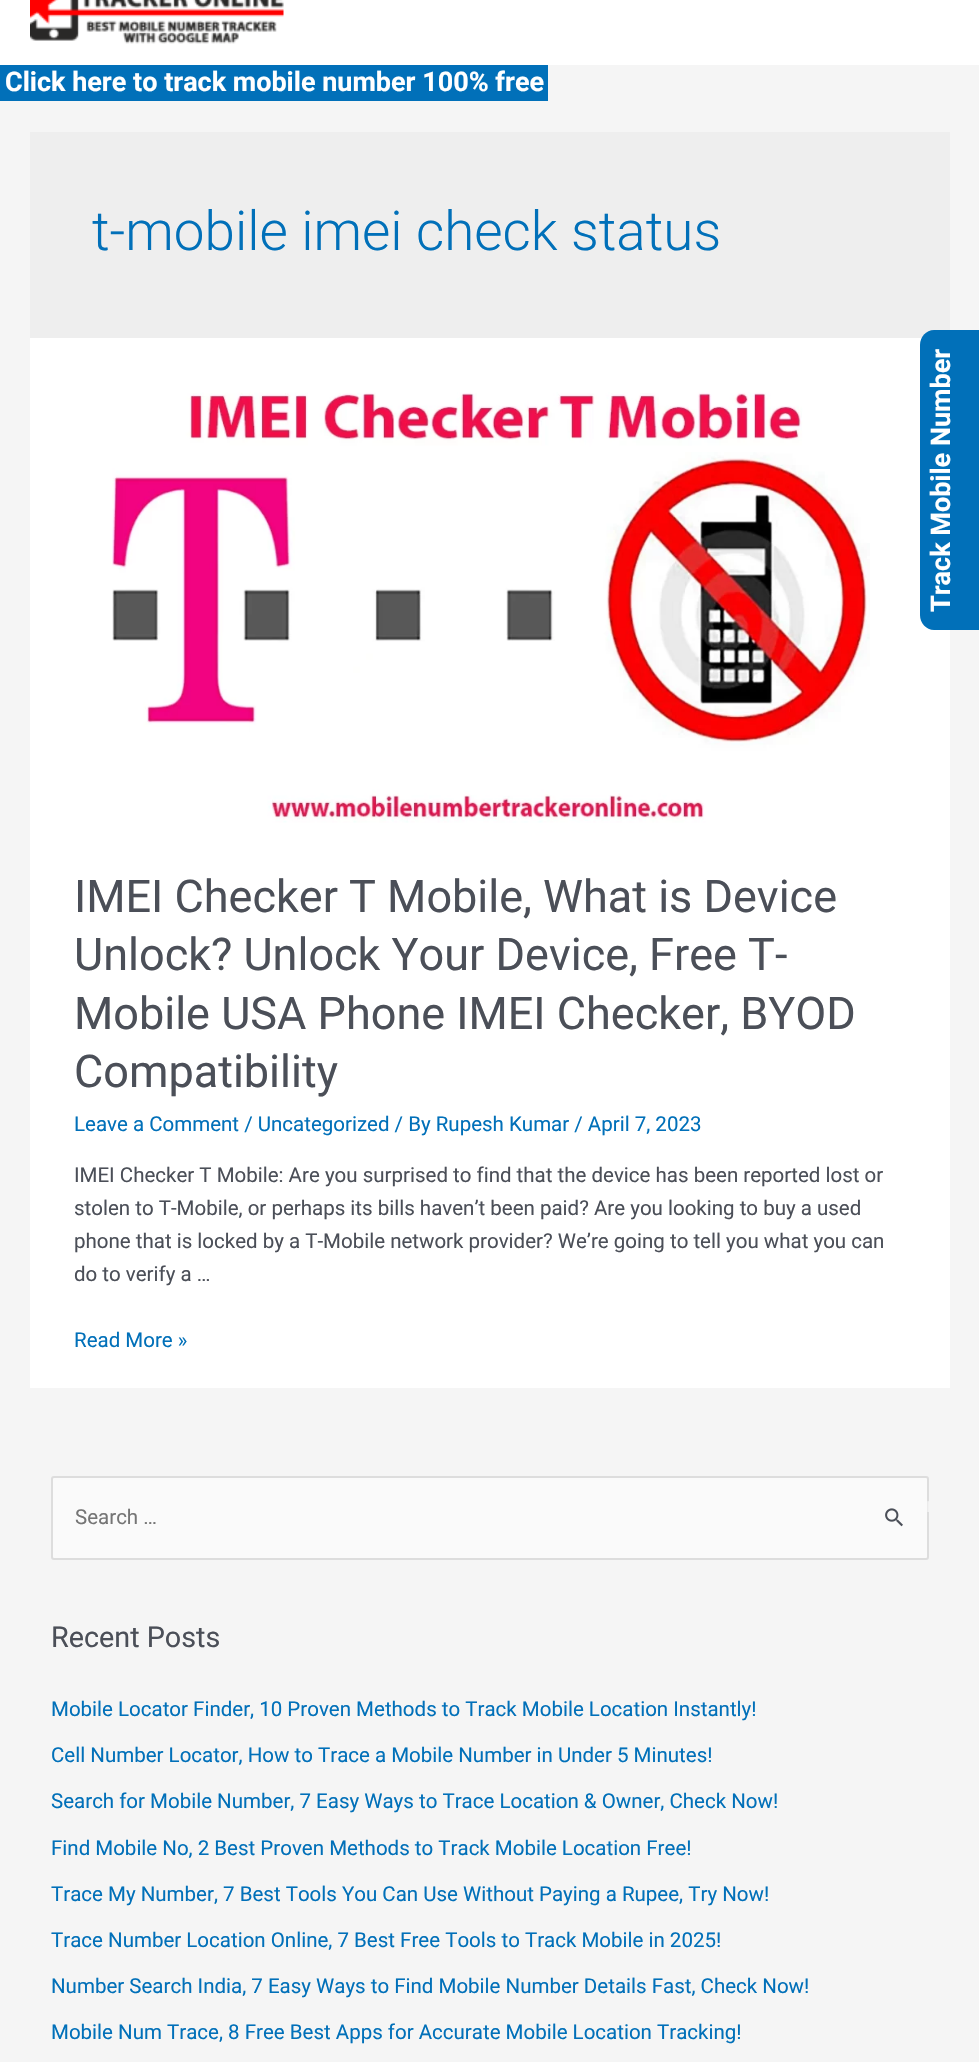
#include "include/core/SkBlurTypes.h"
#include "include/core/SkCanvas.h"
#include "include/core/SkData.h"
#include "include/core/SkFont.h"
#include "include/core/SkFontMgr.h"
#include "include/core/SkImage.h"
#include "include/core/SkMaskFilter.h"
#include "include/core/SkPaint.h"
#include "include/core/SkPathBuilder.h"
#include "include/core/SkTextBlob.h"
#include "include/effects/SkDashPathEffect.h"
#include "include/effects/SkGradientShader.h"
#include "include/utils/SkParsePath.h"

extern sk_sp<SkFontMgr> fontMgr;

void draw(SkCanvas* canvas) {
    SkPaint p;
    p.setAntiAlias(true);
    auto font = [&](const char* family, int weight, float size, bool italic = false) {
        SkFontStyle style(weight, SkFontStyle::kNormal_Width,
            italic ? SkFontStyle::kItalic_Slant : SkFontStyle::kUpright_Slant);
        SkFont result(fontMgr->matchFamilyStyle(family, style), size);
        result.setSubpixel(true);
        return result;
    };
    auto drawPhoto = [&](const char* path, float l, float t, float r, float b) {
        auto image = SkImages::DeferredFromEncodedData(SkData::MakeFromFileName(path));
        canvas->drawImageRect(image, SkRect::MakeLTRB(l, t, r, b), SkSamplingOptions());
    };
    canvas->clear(0xFFF5F5F5);
    p.setColor(0xFFFFFFFF);
    canvas->drawRect(SkRect::MakeLTRB(0, 0, 979, 65), p);
    drawPhoto("media/1.png", 30, 0, 284, 44);
    p.setColor(0xFF0170B9);
    canvas->drawRect(SkRect::MakeLTRB(0, 65, 548, 101), p);
    auto font1 = font("Roboto", 700, 27);
    p.setColor(0xFFFFFFFF);
    canvas->drawString("Click here to track mobile number 100% free", 5, 91, font1, p);
    p.setColor(0xFFEEEEEE);
    canvas->drawRect(SkRect::MakeLTRB(30, 132, 950, 338), p);
    auto font2 = font("Roboto", 300, 54.75f);
    p.setColor(0xFF0170B9);
    canvas->drawString("t-mobile imei check status", 92, 250, font2, p);
    p.setColor(0xFFFFFFFF);
    canvas->drawRect(SkRect::MakeLTRB(30, 338, 950, 1388), p);
    drawPhoto("media/2.png", 112, 392, 870, 823);
    auto font3 = font("Roboto", 400, 45);
    p.setColor(0xFF4B4F58);
    {
        const struct { const char* s; float x, y; } items[] = {
            {"IMEI Checker T Mobile, What is Device", 74, 912},
            {"Unlock? Unlock Your Device, Free T-", 74, 970},
            {"Mobile USA Phone IMEI Checker, BYOD", 74, 1029},
            {"Compatibility", 74, 1087},
        };
        for (auto [s, x, y] : items) {
            canvas->drawString(s, x, y, font3, p);
        }
    }
    auto font4 = font("Roboto", 400, 20.5f);
    p.setColor(0xFF0170B9);
    canvas->drawString("Leave a Comment / Uncategorized / By Rupesh Kumar / April 7, 2023", 74, 1131, font4, p);
    p.setColor(0xFF4B4F58);
    {
        const struct { const char* s; float x, y; } items[] = {
            {"IMEI Checker T Mobile: Are you surprised to find that the device has been reported lost or", 74, 1182},
            {"stolen to T-Mobile, or perhaps its bills haven’t been paid? Are you looking to buy a used", 74, 1215},
            {"phone that is locked by a T-Mobile network provider? We’re going to tell you what you can", 74, 1248},
            {"do to verify a …", 74, 1281},
        };
        for (auto [s, x, y] : items) {
            canvas->drawString(s, x, y, font4, p);
        }
    }
    p.setColor(0xFF0170B9);
    canvas->drawString("Read More »", 74, 1347, font4, p);
    p.setColor(0xFFFAFAFA);
    canvas->drawRoundRect(SkRect::MakeLTRB(52, 1477, 928, 1559), 2, 2, p);
    p.setStyle(SkPaint::kStroke_Style);
    p.setStrokeWidth(2);
    p.setColor(0xFFDDDDDD);
    canvas->drawRoundRect(SkRect::MakeLTRB(52, 1477, 928, 1559), 2, 2, p);
    canvas->save();
    canvas->clipPath(SkPathBuilder().moveTo(864, 1476).lineTo(926, 1476).cubicTo(927.5f, 1476, 929, 1477.5f, 929, 1479).lineTo(929, 1533).cubicTo(929, 1534.5f, 927.5f, 1536, 926, 1536).lineTo(864, 1536).cubicTo(862.5f, 1536, 861, 1534.5f, 861, 1533).lineTo(861, 1479).cubicTo(861, 1477.5f, 862.5f, 1476, 864, 1476).close().detach(), true);
    p.setStyle(SkPaint::kFill_Style);
    p.setColor(0xFFF1F1F1);
    canvas->drawString("r", 926, 1512, font4, p);
    canvas->restore();
    p.setColor(0xFF757575);
    canvas->drawString("Search …", 75, 1524, font4, p);
    drawPhoto("media/3.png", 885, 1508, 903, 1527);
    auto font5 = font("Roboto", 400, 28.75f);
    p.setColor(0xFF4B4F58);
    canvas->drawString("Recent Posts", 51, 1647, font5, p);
    p.setColor(0xFF0170B9);
    {
        const struct { const char* s; float x, y; } items[] = {
            {"Mobile Locator Finder, 10 Proven Methods to Track Mobile Location Instantly!", 51, 1716},
            {"Cell Number Locator, How to Trace a Mobile Number in Under 5 Minutes!", 51, 1762},
            {"Search for Mobile Number, 7 Easy Ways to Trace Location & Owner, Check Now!", 51, 1808},
            {"Find Mobile No, 2 Best Proven Methods to Track Mobile Location Free!", 51, 1855},
            {"Trace My Number, 7 Best Tools You Can Use Without Paying a Rupee, Try Now!", 51, 1901},
            {"Trace Number Location Online, 7 Best Free Tools to Track Mobile in 2025!", 51, 1947},
            {"Number Search India, 7 Easy Ways to Find Mobile Number Details Fast, Check Now!", 51, 1993},
            {"Mobile Num Trace, 8 Free Best Apps for Accurate Mobile Location Tracking!", 51, 2039},
        };
        for (auto [s, x, y] : items) {
            canvas->drawString(s, x, y, font4, p);
        }
    }
    canvas->drawPath(SkPathBuilder().moveTo(920, 615).lineTo(920, 345).cubicTo(920, 337, 926, 330, 934, 330).lineTo(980, 330).lineTo(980, 630).lineTo(934, 630).cubicTo(926, 630, 920, 623, 920, 615).close().detach(), p);
    p.setColor(0xFFFFFFFF);
    canvas->save();
    canvas->rotate(-90, 950, 612);
    canvas->drawString("Track Mobile Number", 950, 612, font1, p);
    canvas->restore();
}
